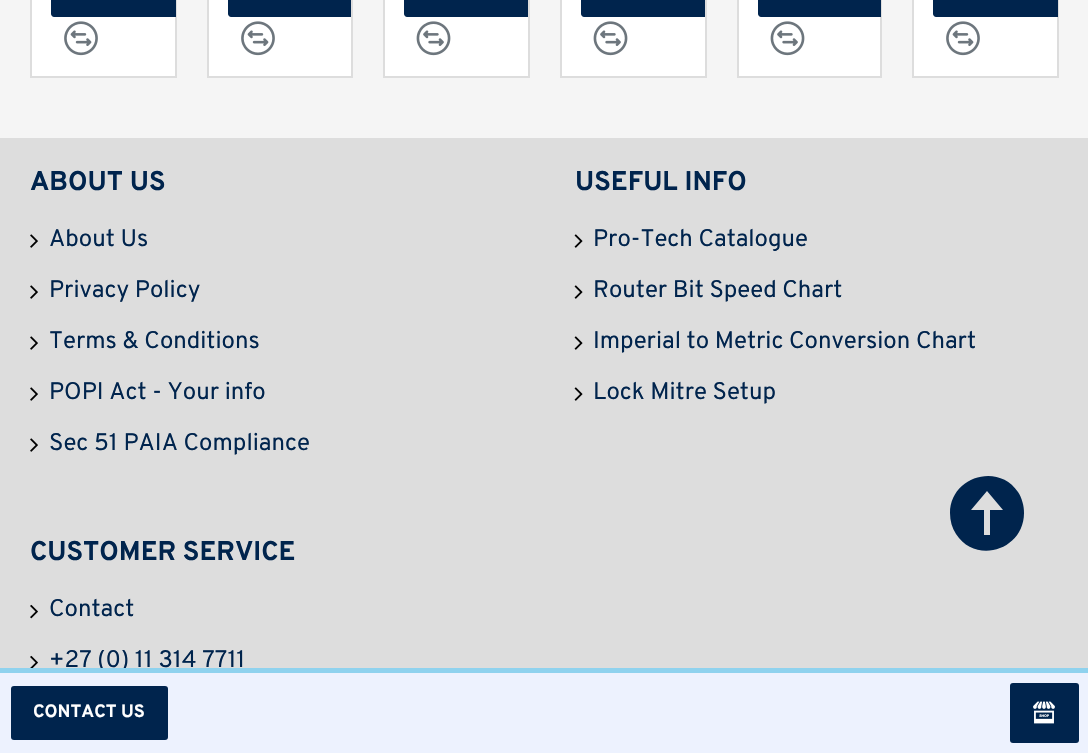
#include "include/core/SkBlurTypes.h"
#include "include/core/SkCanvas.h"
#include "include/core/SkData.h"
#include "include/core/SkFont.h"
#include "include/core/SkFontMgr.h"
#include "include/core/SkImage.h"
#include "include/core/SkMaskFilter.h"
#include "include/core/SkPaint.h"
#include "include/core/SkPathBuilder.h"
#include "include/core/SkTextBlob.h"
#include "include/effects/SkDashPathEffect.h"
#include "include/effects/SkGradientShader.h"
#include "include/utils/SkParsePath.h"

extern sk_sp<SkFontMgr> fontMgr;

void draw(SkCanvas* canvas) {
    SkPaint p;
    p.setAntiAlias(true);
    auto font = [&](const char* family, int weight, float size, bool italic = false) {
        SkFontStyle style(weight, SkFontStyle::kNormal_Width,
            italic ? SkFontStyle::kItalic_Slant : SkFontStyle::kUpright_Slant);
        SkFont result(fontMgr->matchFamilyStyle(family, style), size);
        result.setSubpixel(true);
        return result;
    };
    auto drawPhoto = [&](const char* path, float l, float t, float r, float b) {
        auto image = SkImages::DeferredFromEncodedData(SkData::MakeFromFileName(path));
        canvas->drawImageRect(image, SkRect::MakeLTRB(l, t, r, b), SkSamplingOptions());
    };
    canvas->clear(0xFFF5F5F5);
    p.setColor(0xFFFFFFFF);
    canvas->drawRect(SkRect::MakeLTRB(31, -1, 176, 77), p);
    p.setStyle(SkPaint::kStroke_Style);
    p.setStrokeWidth(2);
    p.setColor(0xFFDDDDDD);
    canvas->drawRect(SkRect::MakeLTRB(31, -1, 176, 77), p);
    p.setStyle(SkPaint::kFill_Style);
    p.setColor(0xFF00244D);
    canvas->drawPath(SkPathBuilder().moveTo(54, -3).lineTo(176, -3).lineTo(176, 17).lineTo(54, 17).cubicTo(52.5f, 17, 51, 15.5f, 51, 14).lineTo(51, 0).cubicTo(51, -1.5f, 52.5f, -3, 54, -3).close().detach(), p);
    drawPhoto("media/1.png", 64, 21, 98, 56);
    p.setColor(0xFFFFFFFF);
    canvas->drawRect(SkRect::MakeLTRB(208, -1, 352, 77), p);
    p.setStyle(SkPaint::kStroke_Style);
    p.setColor(0xFFDDDDDD);
    canvas->drawRect(SkRect::MakeLTRB(208, -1, 352, 77), p);
    p.setStyle(SkPaint::kFill_Style);
    p.setColor(0xFF00244D);
    canvas->drawPath(SkPathBuilder().moveTo(231, -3).lineTo(351, -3).lineTo(351, 17).lineTo(231, 17).cubicTo(229.5f, 17, 228, 15.5f, 228, 14).lineTo(228, 0).cubicTo(228, -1.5f, 229.5f, -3, 231, -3).close().detach(), p);
    drawPhoto("media/1.png", 241, 21, 275, 56);
    p.setColor(0xFFFFFFFF);
    canvas->drawRect(SkRect::MakeLTRB(384, -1, 529, 77), p);
    p.setStyle(SkPaint::kStroke_Style);
    p.setColor(0xFFDDDDDD);
    canvas->drawRect(SkRect::MakeLTRB(384, -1, 529, 77), p);
    p.setStyle(SkPaint::kFill_Style);
    p.setColor(0xFF00244D);
    canvas->drawPath(SkPathBuilder().moveTo(407, -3).lineTo(528, -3).lineTo(528, 17).lineTo(407, 17).cubicTo(405.5f, 17, 404, 15.5f, 404, 14).lineTo(404, 0).cubicTo(404, -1.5f, 405.5f, -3, 407, -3).close().detach(), p);
    drawPhoto("media/2.png", 416, 21, 451, 56);
    p.setColor(0xFFFFFFFF);
    canvas->drawRect(SkRect::MakeLTRB(561, -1, 706, 77), p);
    p.setStyle(SkPaint::kStroke_Style);
    p.setColor(0xFFDDDDDD);
    canvas->drawRect(SkRect::MakeLTRB(561, -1, 706, 77), p);
    p.setStyle(SkPaint::kFill_Style);
    p.setColor(0xFF00244D);
    canvas->drawPath(SkPathBuilder().moveTo(584, -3).lineTo(705, -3).lineTo(705, 17).lineTo(584, 17).cubicTo(582.5f, 17, 581, 15.5f, 581, 14).lineTo(581, 0).cubicTo(581, -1.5f, 582.5f, -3, 584, -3).close().detach(), p);
    drawPhoto("media/2.png", 593, 21, 628, 56);
    p.setColor(0xFFFFFFFF);
    canvas->drawRect(SkRect::MakeLTRB(738, -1, 881, 77), p);
    p.setStyle(SkPaint::kStroke_Style);
    p.setColor(0xFFDDDDDD);
    canvas->drawRect(SkRect::MakeLTRB(738, -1, 881, 77), p);
    p.setStyle(SkPaint::kFill_Style);
    p.setColor(0xFF00244D);
    canvas->drawPath(SkPathBuilder().moveTo(761, -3).lineTo(881, -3).lineTo(881, 17).lineTo(761, 17).cubicTo(759.5f, 17, 758, 15.5f, 758, 14).lineTo(758, 0).cubicTo(758, -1.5f, 759.5f, -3, 761, -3).close().detach(), p);
    drawPhoto("media/2.png", 770, 21, 805, 56);
    p.setColor(0xFFFFFFFF);
    canvas->drawRect(SkRect::MakeLTRB(913, -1, 1058, 77), p);
    p.setStyle(SkPaint::kStroke_Style);
    p.setColor(0xFFDDDDDD);
    canvas->drawRect(SkRect::MakeLTRB(913, -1, 1058, 77), p);
    p.setStyle(SkPaint::kFill_Style);
    p.setColor(0xFF00244D);
    canvas->drawPath(SkPathBuilder().moveTo(936, -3).lineTo(1058, -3).lineTo(1058, 17).lineTo(936, 17).cubicTo(934.5f, 17, 933, 15.5f, 933, 14).lineTo(933, 0).cubicTo(933, -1.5f, 934.5f, -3, 936, -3).close().detach(), p);
    drawPhoto("media/1.png", 946, 21, 980, 56);
    p.setColor(0xFFDDDDDD);
    canvas->drawRect(SkRect::MakeLTRB(0, 138, 1088, 668), p);
    auto font1 = font("Overpass", 700, 27);
    p.setColor(0xFF00244D);
    canvas->drawString("ABOUT US", 30, 190, font1, p);
    drawPhoto("media/3.png", 30, 234, 38, 248);
    auto font2 = font("Overpass", 400, 24);
    canvas->drawString("About Us", 49, 246, font2, p);
    drawPhoto("media/3.png", 30, 285, 38, 299);
    canvas->drawString("Privacy Policy", 49, 297, font2, p);
    drawPhoto("media/3.png", 30, 336, 38, 350);
    canvas->drawString("Terms & Conditions", 49, 348, font2, p);
    drawPhoto("media/3.png", 30, 387, 38, 401);
    canvas->drawString("POPI Act - Your info", 49, 399, font2, p);
    drawPhoto("media/3.png", 30, 438, 38, 452);
    canvas->drawString("Sec 51 PAIA Compliance", 49, 450, font2, p);
    canvas->drawString("USEFUL INFO", 575, 190, font1, p);
    drawPhoto("media/4.png", 574, 234, 583, 248);
    canvas->drawString("Pro-Tech Catalogue", 593, 246, font2, p);
    drawPhoto("media/4.png", 574, 285, 583, 299);
    canvas->drawString("Router Bit Speed Chart", 593, 297, font2, p);
    drawPhoto("media/4.png", 574, 336, 583, 350);
    canvas->drawString("Imperial to Metric Conversion Chart", 593, 348, font2, p);
    drawPhoto("media/4.png", 574, 387, 583, 401);
    canvas->drawString("Lock Mitre Setup", 593, 399, font2, p);
    canvas->drawString("CUSTOMER SERVICE", 30, 560, font1, p);
    drawPhoto("media/5.png", 30, 604, 38, 619);
    canvas->drawString("Contact", 49, 616, font2, p);
    drawPhoto("media/6.png", 30, 655, 38, 668);
    canvas->drawString("+27 (0) 11 314 7711", 49, 667, font2, p);
    p.setColor(0xFFEDF2FE);
    canvas->drawRect(SkRect::MakeLTRB(0, 673, 1088, 753), p);
    p.setColor(0xFF8FD2EE);
    canvas->drawRect(SkRect::MakeLTRB(0, 668, 1088, 673), p);
    p.setColor(0xFF00244D);
    canvas->drawRoundRect(SkRect::MakeLTRB(11, 686, 168, 740), 3, 3, p);
    auto font3 = font("Overpass", 700, 18);
    p.setColor(0xFFFFFFFF);
    canvas->drawString("CONTACT US", 33, 717, font3, p);
    p.setColor(0xFF00244D);
    canvas->drawRoundRect(SkRect::MakeLTRB(1010, 683, 1079, 743), 3, 3, p);
    drawPhoto("media/7.png", 1033, 701, 1055, 724);
    canvas->drawPath(SkPathBuilder().moveTo(950, 513).cubicTo(950, 521, 952, 528, 956, 534).cubicTo(976, 565, 1024, 550, 1024, 513).cubicTo(1024, 506, 1022, 498, 1018, 492).cubicTo(998, 462, 950, 477, 950, 513).close().moveTo(1003, 510).lineTo(990, 510).lineTo(990, 535).lineTo(984, 535).lineTo(984, 510).lineTo(971, 510).lineTo(987, 491).close().detach(), p);
}
